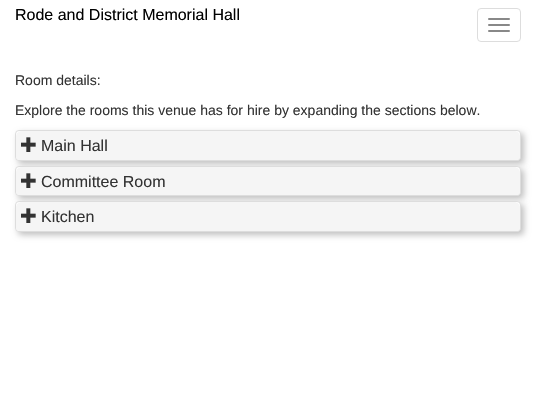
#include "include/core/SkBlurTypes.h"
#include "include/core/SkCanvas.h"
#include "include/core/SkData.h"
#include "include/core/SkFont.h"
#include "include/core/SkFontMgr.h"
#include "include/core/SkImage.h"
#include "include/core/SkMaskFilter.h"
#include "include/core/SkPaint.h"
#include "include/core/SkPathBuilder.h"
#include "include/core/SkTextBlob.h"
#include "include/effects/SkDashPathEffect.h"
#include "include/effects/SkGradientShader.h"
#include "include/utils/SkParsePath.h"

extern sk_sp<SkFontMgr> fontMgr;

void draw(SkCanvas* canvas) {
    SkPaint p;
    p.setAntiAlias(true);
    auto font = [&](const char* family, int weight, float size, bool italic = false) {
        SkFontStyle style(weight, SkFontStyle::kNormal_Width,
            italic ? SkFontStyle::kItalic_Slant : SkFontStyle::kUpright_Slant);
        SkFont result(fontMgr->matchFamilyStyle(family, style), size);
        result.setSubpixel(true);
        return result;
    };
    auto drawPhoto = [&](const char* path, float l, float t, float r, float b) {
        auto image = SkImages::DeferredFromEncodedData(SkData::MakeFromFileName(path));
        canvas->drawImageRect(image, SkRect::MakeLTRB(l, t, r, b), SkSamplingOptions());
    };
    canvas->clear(0xFFFFFFFF);
    auto font1 = font("Liberation Sans", 400, 16);
    p.setColor(0xFF000000);
    canvas->drawString("Rode and District Memorial Hall", 15, 20, font1, p);
    p.setStyle(SkPaint::kStroke_Style);
    p.setStrokeWidth(1);
    p.setColor(0xFFDDDDDD);
    canvas->drawRoundRect(SkRect::MakeLTRB(477.5f, 8.5f, 520.5f, 41.5f), 3.5f, 3.5f, p);
    p.setStyle(SkPaint::kFill_Style);
    p.setColor(0xFF888888);
    canvas->drawRoundRect(SkRect::MakeLTRB(488, 18, 510, 20), 1, 1, p);
    canvas->drawRoundRect(SkRect::MakeLTRB(488, 24, 510, 26), 1, 1, p);
    canvas->drawRoundRect(SkRect::MakeLTRB(488, 30, 510, 32), 1, 1, p);
    auto font2 = font("Liberation Sans", 400, 14);
    p.setColor(0xFF333333);
    canvas->drawString("Room details:", 15, 85, font2, p);
    canvas->drawString("Explore the rooms this venue has for hire by expanding the sections below.", 15, 115, font2, p);
    p.setColor(0xFFC0C0C0);
    p.setMaskFilter(SkMaskFilter::MakeBlur(kNormal_SkBlurStyle, 3));
    canvas->drawRoundRect(SkRect::MakeLTRB(18, 133, 524, 164), 4, 4, p);
    p.setMaskFilter(nullptr);
    p.setColor(0xFFFFFFFF);
    canvas->drawRoundRect(SkRect::MakeLTRB(15.5f, 130.5f, 520.5f, 160.5f), 3.5f, 3.5f, p);
    p.setStyle(SkPaint::kStroke_Style);
    p.setColor(0xFFDDDDDD);
    canvas->drawRoundRect(SkRect::MakeLTRB(15.5f, 130.5f, 520.5f, 160.5f), 3.5f, 3.5f, p);
    canvas->save();
    canvas->clipPath(SkPathBuilder().moveTo(19, 131).lineTo(517, 131).cubicTo(518.5f, 131, 520, 132.5f, 520, 134).lineTo(520, 157).cubicTo(520, 158.5f, 518.5f, 160, 517, 160).lineTo(19, 160).cubicTo(17.5f, 160, 16, 158.5f, 16, 157).lineTo(16, 134).cubicTo(16, 132.5f, 17.5f, 131, 19, 131).close().detach(), true);
    p.setStyle(SkPaint::kFill_Style);
    p.setColor(0xFFF5F5F5);
    canvas->drawPath(SkPathBuilder().moveTo(22, 131).lineTo(514, 131).cubicTo(517.5f, 131, 520, 133.5f, 520, 137).lineTo(520, 157).cubicTo(520, 158.5f, 518.5f, 160, 517, 160).lineTo(19, 160).cubicTo(17.5f, 160, 16, 158.5f, 16, 157).lineTo(16, 137).cubicTo(16, 133.5f, 18.5f, 131, 22, 131).close().detach(), p);
    canvas->restore();
    drawPhoto("media/1.png", 21, 137, 36, 152);
    p.setColor(0xFF333333);
    canvas->drawString("Main Hall", 41, 151, font1, p);
    p.setColor(0xFFC0C0C0);
    p.setMaskFilter(SkMaskFilter::MakeBlur(kNormal_SkBlurStyle, 3));
    canvas->drawRoundRect(SkRect::MakeLTRB(18, 169, 524, 199), 4, 4, p);
    p.setMaskFilter(nullptr);
    p.setColor(0xFFFFFFFF);
    canvas->drawRoundRect(SkRect::MakeLTRB(15.5f, 166.5f, 520.5f, 195.5f), 3.5f, 3.5f, p);
    p.setStyle(SkPaint::kStroke_Style);
    p.setColor(0xFFDDDDDD);
    canvas->drawRoundRect(SkRect::MakeLTRB(15.5f, 166.5f, 520.5f, 195.5f), 3.5f, 3.5f, p);
    canvas->save();
    canvas->clipPath(SkPathBuilder().moveTo(19, 167).lineTo(517, 167).cubicTo(518.5f, 167, 520, 168.5f, 520, 170).lineTo(520, 192).cubicTo(520, 193.5f, 518.5f, 195, 517, 195).lineTo(19, 195).cubicTo(17.5f, 195, 16, 193.5f, 16, 192).lineTo(16, 170).cubicTo(16, 168.5f, 17.5f, 167, 19, 167).close().detach(), true);
    p.setStyle(SkPaint::kFill_Style);
    p.setColor(0xFFF5F5F5);
    canvas->drawPath(SkPathBuilder().moveTo(22, 167).lineTo(514, 167).cubicTo(517.5f, 167, 520, 169.5f, 520, 173).lineTo(520, 192).cubicTo(520, 193.5f, 518.5f, 195, 517, 195).lineTo(19, 195).cubicTo(17.5f, 195, 16, 193.5f, 16, 192).lineTo(16, 173).cubicTo(16, 169.5f, 18.5f, 167, 22, 167).close().detach(), p);
    canvas->restore();
    drawPhoto("media/1.png", 21, 173, 36, 188);
    p.setColor(0xFF333333);
    canvas->drawString("Committee Room", 41, 187, font1, p);
    p.setColor(0xFFC0C0C0);
    p.setMaskFilter(SkMaskFilter::MakeBlur(kNormal_SkBlurStyle, 3));
    canvas->drawRoundRect(SkRect::MakeLTRB(18, 204, 524, 235), 4, 4, p);
    p.setMaskFilter(nullptr);
    p.setColor(0xFFFFFFFF);
    canvas->drawRoundRect(SkRect::MakeLTRB(15.5f, 201.5f, 520.5f, 231.5f), 3.5f, 3.5f, p);
    p.setStyle(SkPaint::kStroke_Style);
    p.setColor(0xFFDDDDDD);
    canvas->drawRoundRect(SkRect::MakeLTRB(15.5f, 201.5f, 520.5f, 231.5f), 3.5f, 3.5f, p);
    canvas->save();
    canvas->clipPath(SkPathBuilder().moveTo(19, 202).lineTo(517, 202).cubicTo(518.5f, 202, 520, 203.5f, 520, 205).lineTo(520, 228).cubicTo(520, 229.5f, 518.5f, 231, 517, 231).lineTo(19, 231).cubicTo(17.5f, 231, 16, 229.5f, 16, 228).lineTo(16, 205).cubicTo(16, 203.5f, 17.5f, 202, 19, 202).close().detach(), true);
    p.setStyle(SkPaint::kFill_Style);
    p.setColor(0xFFF5F5F5);
    canvas->drawPath(SkPathBuilder().moveTo(22, 202).lineTo(514, 202).cubicTo(517.5f, 202, 520, 204.5f, 520, 208).lineTo(520, 228).cubicTo(520, 229.5f, 518.5f, 231, 517, 231).lineTo(19, 231).cubicTo(17.5f, 231, 16, 229.5f, 16, 228).lineTo(16, 208).cubicTo(16, 204.5f, 18.5f, 202, 22, 202).close().detach(), p);
    canvas->restore();
    drawPhoto("media/1.png", 21, 208, 36, 223);
    p.setColor(0xFF333333);
    canvas->drawString("Kitchen", 41, 222, font1, p);
}
